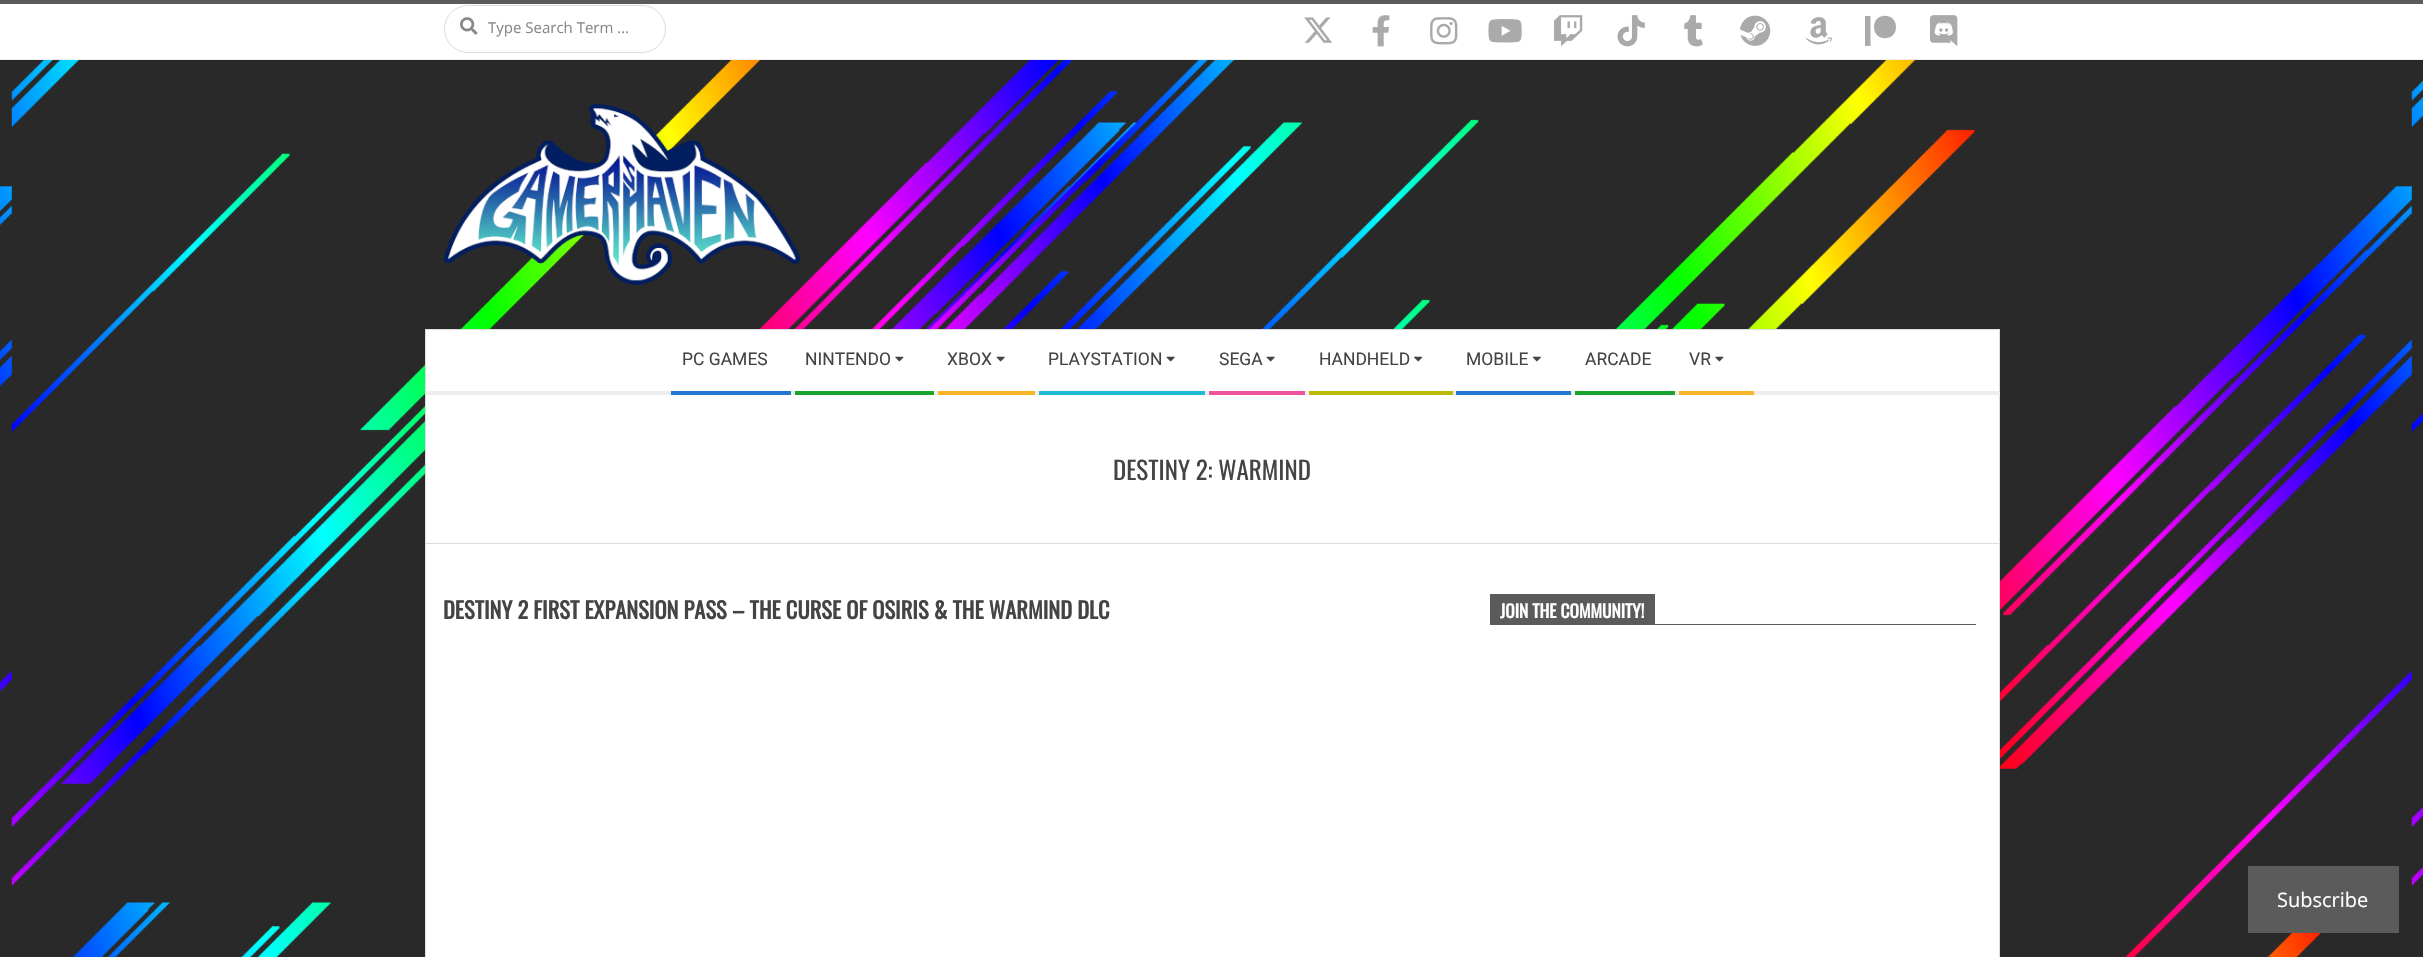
#include "include/core/SkBlurTypes.h"
#include "include/core/SkCanvas.h"
#include "include/core/SkData.h"
#include "include/core/SkFont.h"
#include "include/core/SkFontMgr.h"
#include "include/core/SkImage.h"
#include "include/core/SkMaskFilter.h"
#include "include/core/SkPaint.h"
#include "include/core/SkPathBuilder.h"
#include "include/core/SkTextBlob.h"
#include "include/effects/SkDashPathEffect.h"
#include "include/effects/SkGradientShader.h"
#include "include/utils/SkParsePath.h"

extern sk_sp<SkFontMgr> fontMgr;

void draw(SkCanvas* canvas) {
    SkPaint p;
    p.setAntiAlias(true);
    auto font = [&](const char* family, int weight, float size, bool italic = false) {
        SkFontStyle style(weight, SkFontStyle::kNormal_Width,
            italic ? SkFontStyle::kItalic_Slant : SkFontStyle::kUpright_Slant);
        SkFont result(fontMgr->matchFamilyStyle(family, style), size);
        result.setSubpixel(true);
        return result;
    };
    auto drawPhoto = [&](const char* path, float l, float t, float r, float b) {
        auto image = SkImages::DeferredFromEncodedData(SkData::MakeFromFileName(path));
        canvas->drawImageRect(image, SkRect::MakeLTRB(l, t, r, b), SkSamplingOptions());
    };
    canvas->clear(0xFFFFFFFF);
    drawPhoto("media/1.png", 0, 60, 2423, 957);
    p.setColor(0xFF5B5B5B);
    canvas->drawRect(SkRect::MakeLTRB(0, 0, 2423, 4), p);
    p.setColor(0xFFEEEEEE);
    canvas->drawRect(SkRect::MakeLTRB(0, 59, 2423, 60), p);
    p.setStyle(SkPaint::kStroke_Style);
    p.setStrokeWidth(1);
    p.setColor(0xFFDDDDDD);
    canvas->drawRoundRect(SkRect::MakeLTRB(444.5f, 5.5f, 665.5f, 52.5f), 23.5f, 23.5f, p);
    drawPhoto("media/2.png", 460, 17, 478, 35);
    auto font1 = font("Open Sans", 400, 15);
    p.setStyle(SkPaint::kFill_Style);
    p.setColor(0xFF888888);
    canvas->drawString("Type Search Term …", 488, 33, font1, p);
    drawPhoto("media/3.png", 1304, 17, 1332, 43);
    drawPhoto("media/4.png", 1372, 15, 1390, 47);
    drawPhoto("media/5.png", 1430, 17, 1458, 45);
    drawPhoto("media/6.png", 1488, 19, 1522, 43);
    drawPhoto("media/7.png", 1554, 15, 1583, 47);
    drawPhoto("media/8.png", 1617, 15, 1645, 47);
    drawPhoto("media/9.png", 1684, 15, 1703, 47);
    drawPhoto("media/10.png", 1740, 15, 1771, 46);
    drawPhoto("media/11.png", 1805, 17, 1832, 45);
    p.setColor(0xFFAAAAAA);
    canvas->drawPath(SkPathBuilder().moveTo(1896, 27).cubicTo(1896, 42, 1874, 42, 1874, 27).cubicTo(1874, 12, 1896, 12, 1896, 27).close().moveTo(1865, 46).lineTo(1865, 16).lineTo(1870.5f, 16).lineTo(1870.5f, 46).close().detach(), p);
    drawPhoto("media/12.png", 1930, 15, 1958, 47);
    p.setColor(0xFFDDDDDD);
    canvas->drawRect(SkRect::MakeLTRB(425, 329, 2000, 330), p);
    drawPhoto("media/13.png", 443, 103, 800, 285);
    p.setColor(0xFFFFFFFF);
    canvas->drawRect(SkRect::MakeLTRB(425, 330, 2000, 395), p);
    p.setColor(0xFFDDDDDD);
    canvas->drawPath(SkPathBuilder().moveTo(2000, 330).lineTo(2000, 395).lineTo(1999, 391).lineTo(1999, 330).close().detach(), p);
    p.setColor(0xFFEEEEEE);
    canvas->drawPath(SkPathBuilder().moveTo(2000, 395).lineTo(425, 395).lineTo(426, 391).lineTo(1999, 391).close().detach(), p);
    p.setColor(0xFFDDDDDD);
    canvas->drawPath(SkPathBuilder().moveTo(425, 395).lineTo(425, 330).lineTo(426, 330).lineTo(426, 391).close().detach(), p);
    auto font2 = font("Roboto", 400, 17.5f);
    p.setColor(0xFF444444);
    canvas->drawString("PC GAMES", 682, 365, font2, p);
    p.setColor(0xFF2279D2);
    canvas->drawRect(SkRect::MakeLTRB(671, 391, 791, 395), p);
    p.setColor(0xFF444444);
    canvas->drawString("NINTENDO", 805, 365, font2, p);
    drawPhoto("media/14.png", 895, 356, 904, 362);
    p.setColor(0xFF1AA331);
    canvas->drawRect(SkRect::MakeLTRB(795, 391, 934, 395), p);
    p.setColor(0xFF444444);
    canvas->drawString("XBOX", 947, 365, font2, p);
    drawPhoto("media/15.png", 996, 356, 1005, 362);
    p.setColor(0xFFF7B528);
    canvas->drawRect(SkRect::MakeLTRB(938, 391, 1035, 395), p);
    p.setColor(0xFF444444);
    canvas->drawString("PLAYSTATION", 1048, 365, font2, p);
    drawPhoto("media/15.png", 1166, 356, 1175, 362);
    p.setColor(0xFF21BAD5);
    canvas->drawRect(SkRect::MakeLTRB(1039, 391, 1205, 395), p);
    p.setColor(0xFF444444);
    canvas->drawString("SEGA", 1219, 365, font2, p);
    drawPhoto("media/15.png", 1266, 356, 1275, 362);
    p.setColor(0xFFEE559D);
    canvas->drawRect(SkRect::MakeLTRB(1209, 391, 1305, 395), p);
    p.setColor(0xFF444444);
    canvas->drawString("HANDHELD", 1319, 365, font2, p);
    drawPhoto("media/16.png", 1414, 356, 1423, 362);
    p.setColor(0xFFBCBA08);
    canvas->drawRect(SkRect::MakeLTRB(1309, 391, 1453, 395), p);
    p.setColor(0xFF444444);
    canvas->drawString("MOBILE", 1466, 365, font2, p);
    drawPhoto("media/17.png", 1532, 356, 1541, 362);
    p.setColor(0xFF2279D2);
    canvas->drawRect(SkRect::MakeLTRB(1456, 391, 1571, 395), p);
    p.setColor(0xFF444444);
    canvas->drawString("ARCADE", 1585, 365, font2, p);
    p.setColor(0xFF1AA331);
    canvas->drawRect(SkRect::MakeLTRB(1575, 391, 1675, 395), p);
    p.setColor(0xFF444444);
    canvas->drawString("VR", 1689, 365, font2, p);
    drawPhoto("media/14.png", 1715, 356, 1724, 362);
    {
        const struct { float l, t, r, b; SkColor color; } items[] = {
            {1679, 391, 1754, 395, 0xFFF7B528},
            {426, 395, 1999, 957, 0xFFFFFFFF},
            {1999, 395, 2000, 957, 0xFFDDDDDD},
            {425, 395, 426, 957, 0xFFDDDDDD},
            {426, 543, 1999, 544, 0xFFDDDDDD},
        };
        for (auto [l, t, r, b, color] : items) {
            p.setColor(color);
            canvas->drawRect(SkRect::MakeLTRB(l, t, r, b), p);
        }
    }
    auto font3 = font("Oswald", 400, 25);
    p.setColor(0xFF444444);
    canvas->drawString("DESTINY 2: WARMIND", 1113, 480, font3, p);
    auto font4 = font("Oswald", 700, 22.5f);
    canvas->drawString("DESTINY 2 FIRST EXPANSION PASS – THE CURSE OF OSIRIS & THE WARMIND DLC", 443, 619, font4, p);
    p.setColor(0xFF5B5B5B);
    canvas->drawRect(SkRect::MakeLTRB(1490, 594, 1655, 624), p);
    auto font5 = font("Oswald", 700, 17.5f);
    p.setColor(0xFFFFFFFF);
    canvas->drawString("JOIN THE COMMUNITY!", 1500, 618, font5, p);
    p.setColor(0xFF5B5B5B);
    canvas->drawRect(SkRect::MakeLTRB(1490, 624, 1976, 625), p);
    canvas->drawRect(SkRect::MakeLTRB(2248, 866, 2399, 933), p);
    auto font6 = font("Open Sans", 400, 20);
    p.setColor(0xFFFFFFFF);
    canvas->drawString("Subscribe", 2277, 907, font6, p);
}
